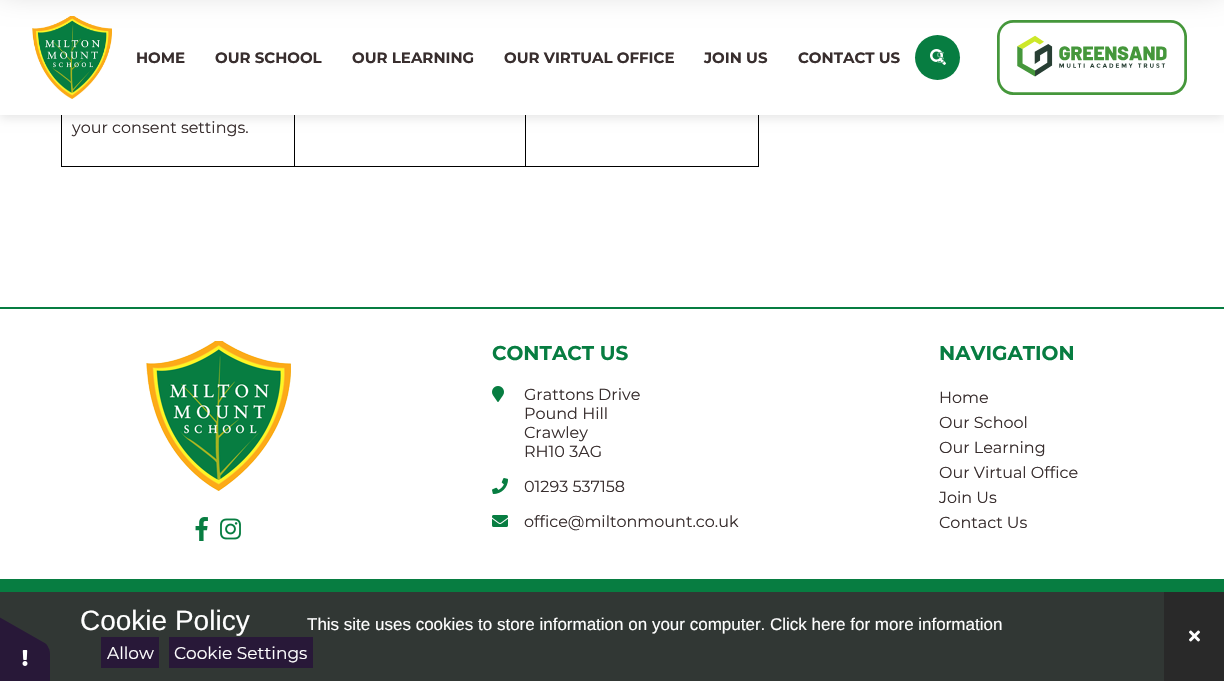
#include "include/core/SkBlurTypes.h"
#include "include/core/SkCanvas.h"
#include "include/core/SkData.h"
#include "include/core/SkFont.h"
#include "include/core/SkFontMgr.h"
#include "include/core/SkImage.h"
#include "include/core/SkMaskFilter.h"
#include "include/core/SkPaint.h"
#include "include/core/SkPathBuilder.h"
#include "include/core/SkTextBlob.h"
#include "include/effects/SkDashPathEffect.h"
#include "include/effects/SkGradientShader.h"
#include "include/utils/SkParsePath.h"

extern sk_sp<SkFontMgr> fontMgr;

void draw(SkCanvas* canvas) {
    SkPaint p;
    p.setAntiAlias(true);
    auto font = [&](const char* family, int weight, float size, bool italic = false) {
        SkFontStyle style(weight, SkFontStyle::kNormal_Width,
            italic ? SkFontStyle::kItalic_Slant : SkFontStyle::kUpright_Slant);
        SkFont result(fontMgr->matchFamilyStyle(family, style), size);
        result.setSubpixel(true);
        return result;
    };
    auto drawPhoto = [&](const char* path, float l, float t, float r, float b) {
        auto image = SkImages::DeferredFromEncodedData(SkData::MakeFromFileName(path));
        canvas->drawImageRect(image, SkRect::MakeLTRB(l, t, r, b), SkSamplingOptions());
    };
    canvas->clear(0xFFFFFFFF);
    {
        const struct { float l, t, r, b; SkColor color; } items[] = {
            {758, 115, 759, 167, 0xFF000000},
            {61, 166, 759, 167, 0xFF000000},
            {61, 115, 62, 167, 0xFF000000},
            {525, 115, 526, 166, 0xFF000000},
            {294, 115, 295, 166, 0xFF000000},
        };
        for (auto [l, t, r, b, color] : items) {
            p.setColor(color);
            canvas->drawRect(SkRect::MakeLTRB(l, t, r, b), p);
        }
    }
    p.setColor(0x1A000000);
    p.setMaskFilter(SkMaskFilter::MakeBlur(kNormal_SkBlurStyle, 5));
    canvas->drawRect(SkRect::MakeLTRB(0, 3, 1224, 118), p);
    p.setMaskFilter(nullptr);
    p.setColor(0xFFFFFFFF);
    canvas->drawRect(SkRect::MakeLTRB(0, 0, 1224, 115), p);
    p.setColor(0x33000000);
    p.setMaskFilter(SkMaskFilter::MakeBlur(kNormal_SkBlurStyle, 16));
    canvas->drawRect(SkRect::MakeLTRB(0, -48, 1224, -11), p);
    p.setMaskFilter(nullptr);
    drawPhoto("media/1.png", 32, 16, 112, 99);
    auto font1 = font("Montserrat", 700, 15);
    p.setColor(0xFF382E2E);
    {
        const struct { const char* s; float x, y; } items[] = {
            {"HOME", 136, 63},
            {"OUR SCHOOL", 215, 63},
            {"OUR LEARNING", 352, 63},
            {"OUR VIRTUAL OFFICE", 504, 63},
            {"JOIN US", 704, 63},
            {"CONTACT US", 798, 63},
        };
        for (auto [s, x, y] : items) {
            canvas->drawString(s, x, y, font1, p);
        }
    }
    p.setColor(0xFF077D41);
    canvas->drawCircle(937.5f, 57.5f, 22.5f, p);
    drawPhoto("media/2.png", 930, 49, 946, 65);
    canvas->save();
    canvas->clipRect(SkRect::MakeLTRB(936, 48, 944, 67));
    auto font2 = font("Montserrat", 400, 16);
    p.setColor(0xFF69B18C);
    canvas->drawString("S", 936, 63, font2, p);
    canvas->restore();
    drawPhoto("media/3.png", 997, 20, 1187, 95);
    p.setColor(0xFF382E2E);
    canvas->drawString("your consent settings.", 72, 133, font2, p);
    p.setColor(0xFF077D41);
    canvas->drawRect(SkRect::MakeLTRB(0, 307, 1224, 309), p);
    drawPhoto("media/4.png", 146, 341, 291, 491);
    drawPhoto("media/5.png", 195, 517, 208, 541);
    drawPhoto("media/6.png", 220, 518, 241, 540);
    auto font3 = font("Montserrat", 700, 20);
    canvas->drawString("CONTACT US", 492, 360, font3, p);
    drawPhoto("media/7.png", 492, 386, 504, 402);
    p.setColor(0xFF382E2E);
    {
        const struct { const char* s; float x, y; } items[] = {
            {"Grattons Drive", 524, 400},
            {"Pound Hill", 524, 419},
            {"Crawley", 524, 438},
            {"RH10 3AG", 524, 457},
        };
        for (auto [s, x, y] : items) {
            canvas->drawString(s, x, y, font2, p);
        }
    }
    drawPhoto("media/8.png", 492, 478, 508, 494);
    canvas->drawString("01293 537158", 524, 492, font2, p);
    drawPhoto("media/9.png", 492, 515, 508, 527);
    canvas->drawString("office@miltonmount.co.uk", 524, 527, font2, p);
    p.setColor(0xFF077D41);
    canvas->drawString("NAVIGATION", 939, 360, font3, p);
    p.setColor(0xFF382E2E);
    {
        const struct { const char* s; float x, y; } items[] = {
            {"Home", 939, 403},
            {"Our School", 939, 428},
            {"Our Learning", 939, 453},
            {"Our Virtual Office", 939, 478},
            {"Join Us", 939, 503},
            {"Contact Us", 939, 528},
        };
        for (auto [s, x, y] : items) {
            canvas->drawString(s, x, y, font2, p);
        }
    }
    p.setColor(0xFF077D41);
    canvas->drawRect(SkRect::MakeLTRB(0, 579, 1224, 592), p);
    p.setColor(0xFF313734);
    canvas->drawRect(SkRect::MakeLTRB(0, 592, 1164, 681), p);
    p.setColor(0xFF281838);
    canvas->drawPath(SkPathBuilder().moveTo(50, 654).lineTo(50, 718).cubicTo(50, 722, 48, 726, 46, 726).lineTo(-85, 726).cubicTo(-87, 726, -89, 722, -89, 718).lineTo(-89, 654).cubicTo(-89, 649, -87, 646, -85, 646).lineTo(46, 646).cubicTo(48, 646, 50, 649, 50, 654).close().detach(), p);
    canvas->drawPath(SkPathBuilder().moveTo(-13, 610).lineTo(43, 642).cubicTo(47, 644, 49, 647, 48, 649).lineTo(-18, 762).cubicTo(-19, 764, -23, 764, -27, 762).lineTo(-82, 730).cubicTo(-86, 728, -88, 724, -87, 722).lineTo(-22, 609).cubicTo(-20, 607, -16, 608, -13, 610).close().detach(), p);
    drawPhoto("media/10.png", 22, 650, 28, 666);
    auto font4 = font("Liberation Sans", 400, 28);
    p.setColor(0xFFFFFFFF);
    canvas->drawString("Cookie Policy", 80, 630, font4, p);
    auto font5 = font("Liberation Sans", 400, 17);
    canvas->drawString("This site uses cookies to store information on your computer. Click here for more information", 307, 630, font5, p);
    p.setColor(0xFF281838);
    canvas->drawRect(SkRect::MakeLTRB(101, 637, 159, 668), p);
    auto font6 = font("Montserrat", 400, 17);
    p.setColor(0xFFFFFFFF);
    canvas->drawString("Allow", 107, 659, font6, p);
    p.setColor(0xFF281838);
    canvas->drawRect(SkRect::MakeLTRB(169, 637, 313, 668), p);
    p.setColor(0xFFFFFFFF);
    canvas->drawString("Cookie Settings", 174, 659, font6, p);
    p.setColor(0xFF292929);
    canvas->drawRect(SkRect::MakeLTRB(1164, 592, 1224, 681), p);
    drawPhoto("media/11.png", 1189, 630, 1200, 642);
}
